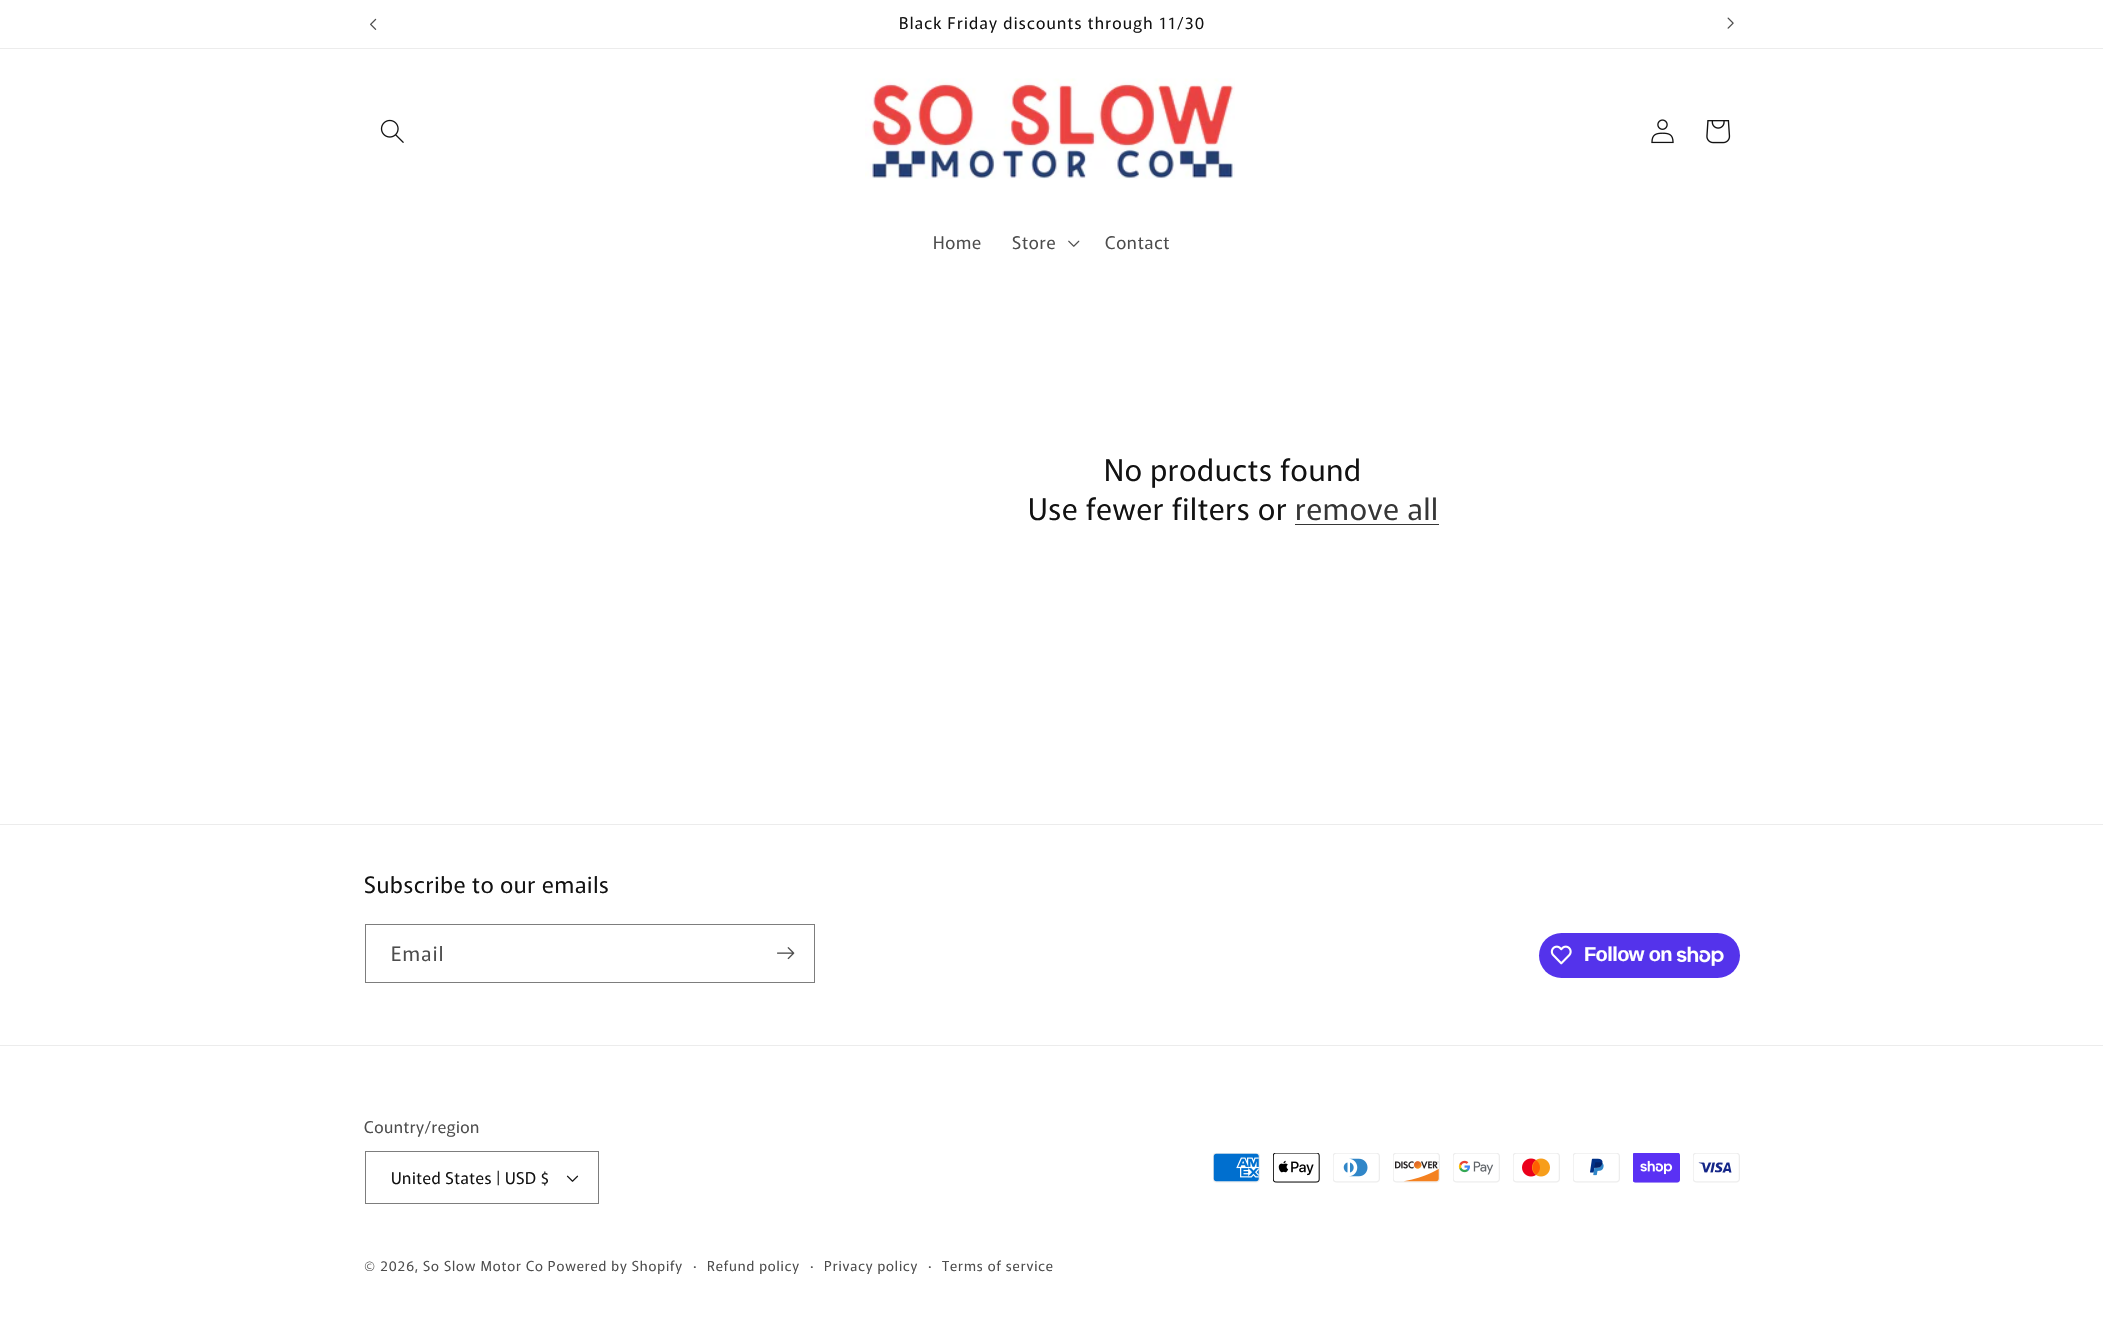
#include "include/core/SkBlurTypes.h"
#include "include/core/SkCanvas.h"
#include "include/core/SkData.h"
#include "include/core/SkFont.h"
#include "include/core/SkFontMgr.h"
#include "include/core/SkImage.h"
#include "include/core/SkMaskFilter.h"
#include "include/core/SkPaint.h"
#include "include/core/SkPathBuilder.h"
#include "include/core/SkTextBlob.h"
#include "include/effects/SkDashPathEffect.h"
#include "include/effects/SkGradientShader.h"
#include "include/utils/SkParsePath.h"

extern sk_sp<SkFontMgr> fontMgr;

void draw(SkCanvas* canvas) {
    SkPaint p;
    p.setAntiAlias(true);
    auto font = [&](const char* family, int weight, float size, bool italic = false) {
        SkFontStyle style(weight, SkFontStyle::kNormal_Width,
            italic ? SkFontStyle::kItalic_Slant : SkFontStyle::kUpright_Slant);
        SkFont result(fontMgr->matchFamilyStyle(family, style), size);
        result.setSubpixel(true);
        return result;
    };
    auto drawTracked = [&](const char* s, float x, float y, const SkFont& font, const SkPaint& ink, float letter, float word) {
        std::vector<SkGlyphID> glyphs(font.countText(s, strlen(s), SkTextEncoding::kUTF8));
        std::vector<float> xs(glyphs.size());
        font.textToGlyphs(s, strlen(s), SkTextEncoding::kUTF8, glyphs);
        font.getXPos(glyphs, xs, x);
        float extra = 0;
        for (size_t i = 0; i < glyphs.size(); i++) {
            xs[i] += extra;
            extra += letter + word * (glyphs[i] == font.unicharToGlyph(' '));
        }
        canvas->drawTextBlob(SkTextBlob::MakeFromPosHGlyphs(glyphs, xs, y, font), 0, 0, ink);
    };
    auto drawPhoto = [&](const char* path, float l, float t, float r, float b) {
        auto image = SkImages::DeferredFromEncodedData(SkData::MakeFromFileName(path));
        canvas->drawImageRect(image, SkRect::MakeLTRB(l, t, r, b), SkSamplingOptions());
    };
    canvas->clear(0xFFFFFFFF);
    p.setColor(0xFFECECEC);
    canvas->drawRect(SkRect::MakeLTRB(0, 48, 2103, 49), p);
    drawPhoto("media/1.png", 370, 18, 377, 30);
    auto font1 = font("Murecho", 400, 16.25f);
    p.setColor(0xFF121212);
    drawTracked("Black Friday discounts through 11/30", 899, 29, font1, p, 1.25f, 0);
    drawPhoto("media/2.png", 1727, 17, 1734, 29);
    drawPhoto("media/3.png", 380, 119, 404, 143);
    drawPhoto("media/4.png", 865, 78, 1235, 179);
    drawPhoto("media/5.png", 1651, 119, 1674, 144);
    drawPhoto("media/6.png", 1706, 120, 1731, 144);
    auto font2 = font("Murecho", 400, 17.5f);
    p.setColor(0xFF4D4D4D);
    drawTracked("Home", 933, 249, font2, p, 0.75f, 0);
    drawTracked("Store", 1012, 249, font2, p, 0.75f, 0);
    drawPhoto("media/7.png", 1068, 240, 1080, 247);
    drawTracked("Contact", 1105, 249, font2, p, 0.75f, 0);
    auto font3 = font("Murecho", 400, 30);
    p.setColor(0xFF121212);
    drawTracked("No products found", 1104, 481, font3, p, 0.75f, 0);
    drawTracked("Use fewer filters or", 1028, 520, font3, p, 0.75f, 0);
    p.setColor(0xFF363636);
    drawTracked("remove all", 1295, 520, font3, p, 0.75f, 0);
    canvas->drawRect(SkRect::MakeLTRB(1295, 524, 1439, 525), p);
    p.setColor(0xFFECECEC);
    canvas->drawRect(SkRect::MakeLTRB(0, 824, 2103, 825), p);
    auto font4 = font("Murecho", 400, 22.5f);
    p.setColor(0xFF121212);
    drawTracked("Subscribe to our emails", 364, 893, font4, p, 0.75f, 0);
    p.setStyle(SkPaint::kStroke_Style);
    p.setStrokeWidth(1);
    p.setColor(0xFF7D7D7D);
    canvas->drawRect(SkRect::MakeLTRB(365.5f, 924.5f, 814.5f, 982.5f), p);
    auto font5 = font("Murecho", 400, 20);
    p.setStyle(SkPaint::kFill_Style);
    p.setColor(0xFF4D4D4D);
    drawTracked("Email", 391, 961, font5, p, 1.25f, 0);
    drawPhoto("media/8.png", 777, 947, 795, 960);
    p.setColor(0xFF5433EB);
    canvas->drawRoundRect(SkRect::MakeLTRB(1539, 933, 1740, 978), 22.5f, 22.5f, p);
    drawPhoto("media/9.png", 1550, 945, 1572, 965);
    auto font6 = font("Liberation Sans", 700, 20);
    p.setColor(0xFFFFFFFF);
    drawTracked("Follow on", 1584, 961, font6, p, -0.6f, 0);
    drawPhoto("media/10.png", 1676, 946, 1724, 966);
    p.setColor(0xFFECECEC);
    canvas->drawRect(SkRect::MakeLTRB(0, 1045, 2103, 1046), p);
    p.setColor(0xFF4D4D4D);
    drawTracked("Country/region", 364, 1133, font1, p, 0.5f, 0);
    drawPhoto("media/11.png", 566, 1175, 579, 1182);
    p.setStyle(SkPaint::kStroke_Style);
    p.setColor(0xFF7D7D7D);
    canvas->drawRect(SkRect::MakeLTRB(365.5f, 1151.5f, 598.5f, 1203.5f), p);
    p.setStyle(SkPaint::kFill_Style);
    p.setColor(0xFF121212);
    drawTracked("United States | USD $", 391, 1184, font1, p, 0.5f, 0);
    drawPhoto("media/12.png", 1213, 1153, 1260, 1183);
    drawPhoto("media/13.png", 1273, 1153, 1320, 1183);
    drawPhoto("media/14.png", 1333, 1153, 1380, 1183);
    drawPhoto("media/15.png", 1393, 1153, 1440, 1183);
    drawPhoto("media/16.png", 1453, 1153, 1500, 1183);
    drawPhoto("media/17.png", 1513, 1153, 1560, 1183);
    drawPhoto("media/18.png", 1573, 1153, 1620, 1183);
    drawPhoto("media/19.png", 1633, 1153, 1680, 1183);
    drawPhoto("media/20.png", 1693, 1153, 1740, 1183);
    auto font7 = font("Murecho", 400, 13.75f);
    p.setColor(0xFF4D4D4D);
    drawTracked("© 2026, So Slow Motor Co Powered by Shopify", 364, 1271, font7, p, 0.9f, 0);
    auto font8 = font("Murecho", 400, 15);
    drawTracked("·", 693, 1271, font8, p, 0.9f, 0);
    drawTracked("Refund policy", 707, 1271, font7, p, 0.9f, 0);
    drawTracked("·", 810, 1271, font8, p, 0.9f, 0);
    drawTracked("Privacy policy", 824, 1271, font7, p, 0.9f, 0);
    drawTracked("·", 928, 1271, font8, p, 0.9f, 0);
    drawTracked("Terms of service", 942, 1271, font7, p, 0.9f, 0);
}
